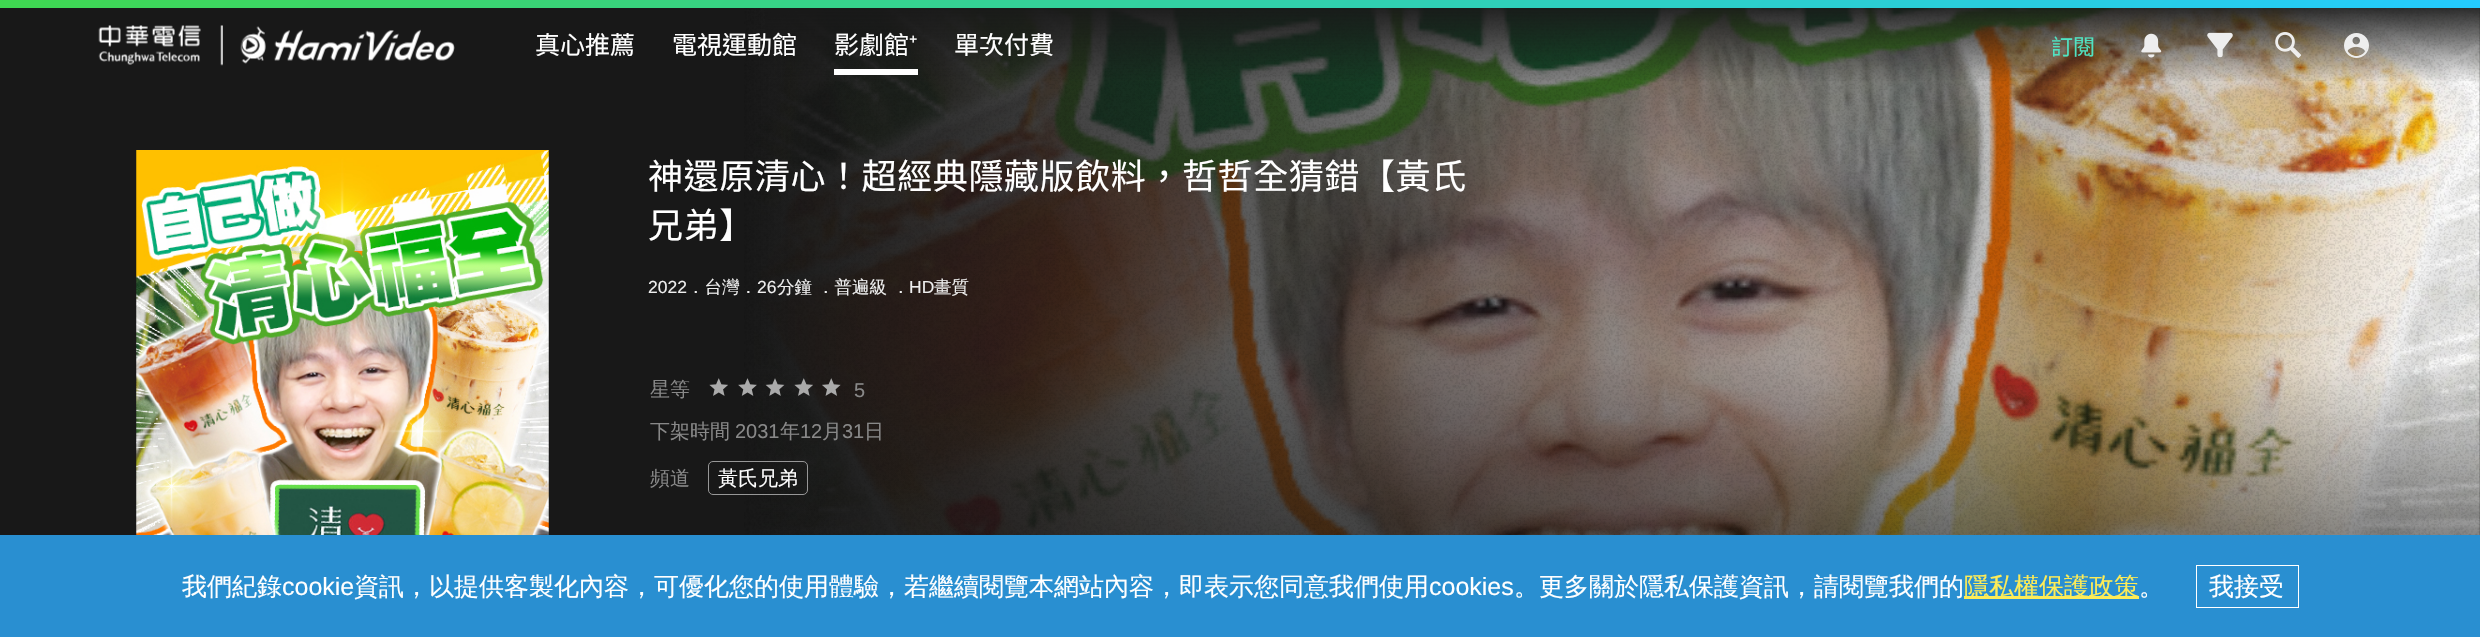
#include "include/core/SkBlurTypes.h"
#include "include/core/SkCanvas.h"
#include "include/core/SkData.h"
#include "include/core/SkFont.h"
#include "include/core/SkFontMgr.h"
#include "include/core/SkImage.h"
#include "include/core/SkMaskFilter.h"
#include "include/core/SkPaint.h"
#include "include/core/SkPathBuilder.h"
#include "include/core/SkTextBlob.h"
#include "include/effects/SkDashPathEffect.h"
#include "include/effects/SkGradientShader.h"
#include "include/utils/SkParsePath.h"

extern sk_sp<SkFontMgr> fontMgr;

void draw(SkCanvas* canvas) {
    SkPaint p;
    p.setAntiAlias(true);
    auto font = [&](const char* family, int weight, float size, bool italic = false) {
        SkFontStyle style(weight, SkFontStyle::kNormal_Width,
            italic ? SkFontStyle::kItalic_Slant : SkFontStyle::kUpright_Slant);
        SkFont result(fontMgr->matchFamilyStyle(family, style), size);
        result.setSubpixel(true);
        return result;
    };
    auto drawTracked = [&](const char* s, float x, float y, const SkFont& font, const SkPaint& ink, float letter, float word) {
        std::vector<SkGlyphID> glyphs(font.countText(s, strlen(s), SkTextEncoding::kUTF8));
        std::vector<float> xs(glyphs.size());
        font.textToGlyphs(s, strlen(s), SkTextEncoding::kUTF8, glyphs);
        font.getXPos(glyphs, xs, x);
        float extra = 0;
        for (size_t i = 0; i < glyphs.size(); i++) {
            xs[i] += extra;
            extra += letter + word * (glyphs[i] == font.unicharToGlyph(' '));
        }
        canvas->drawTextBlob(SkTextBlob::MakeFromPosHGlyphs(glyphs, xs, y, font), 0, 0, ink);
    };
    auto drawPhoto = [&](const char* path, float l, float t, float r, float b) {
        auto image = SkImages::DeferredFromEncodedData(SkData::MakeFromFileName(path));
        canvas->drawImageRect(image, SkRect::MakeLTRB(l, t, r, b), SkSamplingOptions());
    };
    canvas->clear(0xFF181818);
    drawPhoto("media/7.png", 754, 8, 2480, 535);
    drawPhoto("media/6.png", 744, 8, 2480, 535);
    {
        const SkColor colors[] = {0xFF181818, 0x00181818};
        const float stops[] = {0, 1};
        const SkPoint ends[] = {{1240, 0}, {1240, 83}};
        p.setShader(SkGradientShader::MakeLinear(ends, colors, stops, 2, SkTileMode::kClamp));
        p.setAlpha(255);
    }
    canvas->drawRect(SkRect::MakeLTRB(765, 8, 2480, 81), p);
    {
        const SkColor colors[] = {0xFF3FD750, 0xFF24CBFF};
        const float stops[] = {0, 1};
        const SkPoint ends[] = {{612, -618}, {1868, 626}};
        p.setShader(SkGradientShader::MakeLinear(ends, colors, stops, 2, SkTileMode::kClamp));
        p.setAlpha(255);
    }
    canvas->drawRect(SkRect::MakeLTRB(0, 0, 2480, 8), p);
    drawPhoto("media/1.png", 98, 25, 455, 66);
    auto font1 = font("Noto Sans TC", 100, 25);
    p.setShader(nullptr);
    p.setColor(0xFFFFFFFF);
    canvas->drawString("真心推薦", 535, 54, font1, p);
    canvas->drawString("電視運動館", 672, 54, font1, p);
    canvas->drawRect(SkRect::MakeLTRB(834, 69, 918, 75), p);
    canvas->drawString("影劇館", 834, 54, font1, p);
    auto font2 = font("Noto Sans", 400, 25);
    canvas->drawString("⁺", 909, 54, font2, p);
    canvas->drawString("單次付費", 954, 54, font1, p);
    auto font3 = font("Noto Sans TC", 100, 22);
    p.setColor(0xFF50E3C2);
    canvas->drawString("訂閱", 2051, 55, font3, p);
    drawPhoto("media/2.png", 2141, 33, 2162, 58);
    drawPhoto("media/3.png", 2207, 32, 2233, 58);
    drawPhoto("media/4.png", 2275, 32, 2302, 58);
    drawPhoto("media/5.png", 2344, 33, 2369, 58);
    drawPhoto("media/8.png", 136, 150, 549, 535);
    auto font4 = font("Noto Sans TC", 100, 35);
    p.setColor(0xFFFFFFFF);
    drawTracked("神還原清心！超經典隱藏版飲料，哲哲全猜錯【黃氏", 648, 189, font4, p, 0.6f, 0);
    drawTracked("兄弟】", 648, 238, font4, p, 0.6f, 0);
    auto font5 = font("Liberation Sans", 400, 17.5f);
    p.setColor(0xFFEEEEEE);
    canvas->drawString("2022", 648, 293, font5, p);
    auto font6 = font("WenQuanYi Zen Hei", 500, 17.5f);
    canvas->drawString("．台灣．", 687, 293, font6, p);
    canvas->drawString("26", 757, 293, font5, p);
    {
        const struct { const char* s; float x, y; } items[] = {
            {"分鐘", 777, 293},
            {"．普遍級", 817, 293},
            {"．", 892, 293},
        };
        for (auto [s, x, y] : items) {
            canvas->drawString(s, x, y, font6, p);
        }
    }
    canvas->drawString("HD", 909, 293, font5, p);
    canvas->drawString("畫質", 934, 293, font6, p);
    auto font7 = font("WenQuanYi Zen Hei", 500, 20);
    p.setColor(0xFF888888);
    canvas->drawString("星等", 650, 396, font7, p);
    drawPhoto("media/9.png", 709, 378, 728, 396);
    drawPhoto("media/10.png", 738, 378, 757, 396);
    drawPhoto("media/11.png", 765, 378, 785, 396);
    drawPhoto("media/12.png", 794, 378, 813, 396);
    drawPhoto("media/13.png", 822, 378, 841, 396);
    auto font8 = font("Liberation Sans", 400, 20);
    canvas->drawString("5", 854, 397, font8, p);
    canvas->drawString("下架時間", 650, 438, font7, p);
    canvas->drawString("2031", 735, 438, font8, p);
    canvas->drawString("年", 780, 438, font7, p);
    canvas->drawString("12", 800, 438, font8, p);
    canvas->drawString("月", 822, 438, font7, p);
    canvas->drawString("31", 842, 438, font8, p);
    canvas->drawString("日", 864, 438, font7, p);
    canvas->drawString("頻道", 650, 485, font7, p);
    p.setStyle(SkPaint::kStroke_Style);
    p.setStrokeWidth(1);
    p.setColor(0xFF979797);
    canvas->drawRoundRect(SkRect::MakeLTRB(708.5f, 461.5f, 807.5f, 494.5f), 4.5f, 4.5f, p);
    p.setStyle(SkPaint::kFill_Style);
    p.setColor(0xFFFFFFFF);
    canvas->drawString("黃氏兄弟", 718, 485, font7, p);
    p.setColor(0xFF298FD1);
    canvas->drawRect(SkRect::MakeLTRB(0, 535, 2480, 637), p);
    auto font9 = font("WenQuanYi Zen Hei", 500, 25);
    p.setColor(0xFFFFFFFF);
    canvas->drawString("我們紀錄", 182, 595, font9, p);
    auto font10 = font("Liberation Sans", 400, 25);
    canvas->drawString("cookie", 282, 595, font10, p);
    canvas->drawString("資訊，以提供客製化內容，可優化您的使用體驗，若繼續閱覽本網站內容，即表示您同意我們使用", 354, 595, font9, p);
    canvas->drawString("cookies", 1429, 595, font10, p);
    canvas->drawString("。更多關於隱私保護資訊，請閱覽我們的", 1514, 595, font9, p);
    p.setColor(0xFFFDEC57);
    canvas->drawRect(SkRect::MakeLTRB(1964, 596, 2139, 599), p);
    canvas->drawString("隱私權保護政策", 1964, 595, font9, p);
    p.setColor(0xFFFFFFFF);
    canvas->drawString("。", 2139, 595, font9, p);
    p.setStyle(SkPaint::kStroke_Style);
    canvas->drawRect(SkRect::MakeLTRB(2196.5f, 565.5f, 2298.5f, 607.5f), p);
    p.setStyle(SkPaint::kFill_Style);
    canvas->drawString("我接受", 2209, 595, font9, p);
}
